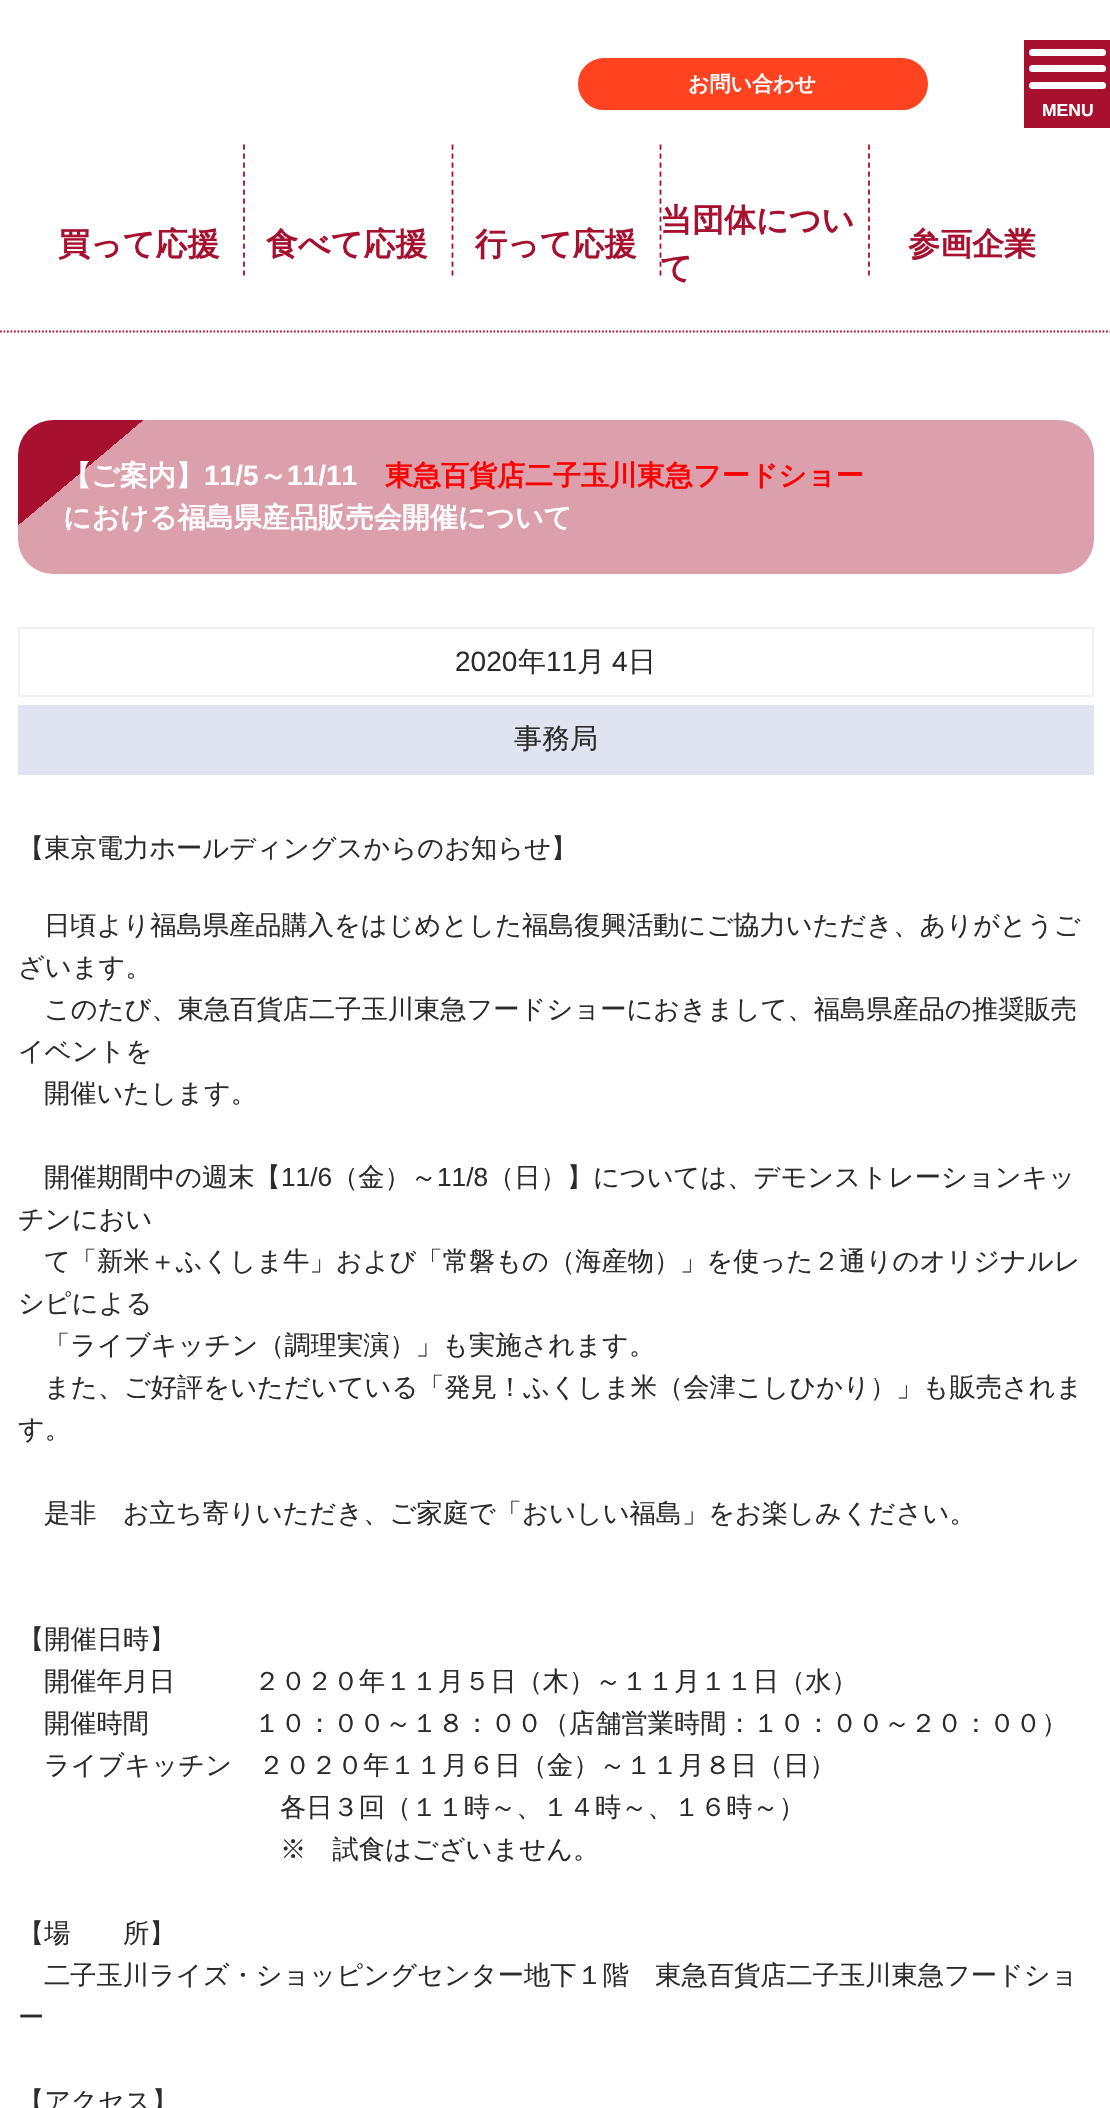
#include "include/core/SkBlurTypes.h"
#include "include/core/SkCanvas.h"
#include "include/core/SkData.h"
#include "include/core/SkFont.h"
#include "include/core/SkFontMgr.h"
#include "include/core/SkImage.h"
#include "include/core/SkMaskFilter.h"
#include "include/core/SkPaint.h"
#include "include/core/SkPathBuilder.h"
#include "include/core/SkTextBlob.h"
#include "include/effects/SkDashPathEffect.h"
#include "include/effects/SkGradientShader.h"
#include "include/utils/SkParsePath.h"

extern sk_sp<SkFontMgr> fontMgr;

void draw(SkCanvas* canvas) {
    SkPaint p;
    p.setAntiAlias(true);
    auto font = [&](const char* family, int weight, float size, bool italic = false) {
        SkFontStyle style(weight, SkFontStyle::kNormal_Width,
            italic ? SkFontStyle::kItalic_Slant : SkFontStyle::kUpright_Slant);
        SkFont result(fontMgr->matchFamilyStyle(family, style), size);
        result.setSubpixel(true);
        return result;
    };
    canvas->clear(0xFFFFFFFF);
    p.setColor(0xFFFF4220);
    canvas->drawRoundRect(SkRect::MakeLTRB(579, 59, 927, 109), 25, 25, p);
    p.setStyle(SkPaint::kStroke_Style);
    p.setStrokeWidth(2);
    canvas->drawRoundRect(SkRect::MakeLTRB(579, 59, 927, 109), 25, 25, p);
    auto font1 = font("WenQuanYi Zen Hei", 700, 21);
    p.setStyle(SkPaint::kFill_Style);
    p.setColor(0xFFFFFFFF);
    canvas->drawString("お問い合わせ", 688, 91, font1, p);
    p.setColor(0xFFA81030);
    canvas->drawRect(SkRect::MakeLTRB(1024, 40, 1110, 128), p);
    p.setColor(0xFFFFFFFF);
    canvas->drawRoundRect(SkRect::MakeLTRB(1029, 49, 1106, 56), 3.5f, 3.5f, p);
    canvas->drawRoundRect(SkRect::MakeLTRB(1029, 65, 1106, 72), 3.5f, 3.5f, p);
    canvas->drawRoundRect(SkRect::MakeLTRB(1029, 82, 1106, 89), 3.5f, 3.5f, p);
    auto font2 = font("Liberation Sans", 700, 17.5f);
    canvas->drawString("MENU", 1042, 116, font2, p);
    p.setStyle(SkPaint::kStroke_Style);
    p.setStrokeWidth(1.8f);
    p.setColor(0xFFA81030);
    p.setPathEffect(SkDashPathEffect::Make({{1.75f, 1.75f}}, 0));
    canvas->drawPath(SkPathBuilder().moveTo(0, 331.5f).lineTo(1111, 331.5f).detach(), p);
    p.setPathEffect(nullptr);
    auto font3 = font("WenQuanYi Zen Hei", 700, 32);
    p.setStyle(SkPaint::kFill_Style);
    canvas->drawString("買って応援", 58, 255, font3, p);
    p.setStyle(SkPaint::kStroke_Style);
    p.setPathEffect(SkDashPathEffect::Make({{5.25f, 3.75f}}, 0));
    canvas->drawPath(SkPathBuilder().moveTo(244, 144.5f).lineTo(244, 275.5f).detach(), p);
    p.setPathEffect(nullptr);
    p.setStyle(SkPaint::kFill_Style);
    canvas->drawString("食べて応援", 266, 255, font3, p);
    p.setStyle(SkPaint::kStroke_Style);
    p.setPathEffect(SkDashPathEffect::Make({{5.25f, 3.75f}}, 0));
    canvas->drawPath(SkPathBuilder().moveTo(452.5f, 144.5f).lineTo(452.5f, 275.5f).detach(), p);
    p.setPathEffect(nullptr);
    p.setStyle(SkPaint::kFill_Style);
    canvas->drawString("行って応援", 475, 255, font3, p);
    p.setStyle(SkPaint::kStroke_Style);
    p.setPathEffect(SkDashPathEffect::Make({{5.25f, 3.75f}}, 0));
    canvas->drawPath(SkPathBuilder().moveTo(660.5f, 144.5f).lineTo(660.5f, 275.5f).detach(), p);
    p.setPathEffect(nullptr);
    p.setStyle(SkPaint::kFill_Style);
    canvas->drawString("当団体につい", 660, 231, font3, p);
    canvas->drawString("て", 660, 279, font3, p);
    p.setStyle(SkPaint::kStroke_Style);
    p.setPathEffect(SkDashPathEffect::Make({{5.25f, 3.75f}}, 0));
    canvas->drawPath(SkPathBuilder().moveTo(869, 144.5f).lineTo(869, 275.5f).detach(), p);
    p.setPathEffect(nullptr);
    p.setStyle(SkPaint::kFill_Style);
    canvas->drawString("参画企業", 908, 255, font3, p);
    {
        const SkColor colors[] = {0xFFA81030, 0xFFA81030, 0xFFDC9FAC, 0xFFDC9FAC};
        const float stops[] = {0, 0.1f, 0.1f, 1};
        const SkPoint ends[] = {{295, 187}, {816, 807}};
        p.setShader(SkGradientShader::MakeLinear(ends, colors, stops, 4, SkTileMode::kClamp));
        p.setAlpha(255);
    }
    canvas->drawRoundRect(SkRect::MakeLTRB(18, 420, 1094, 574), 35, 35, p);
    auto font4 = font("WenQuanYi Zen Hei", 700, 28);
    p.setShader(nullptr);
    p.setColor(0xFFFFFFFF);
    canvas->drawString("【ご案内】", 63, 485, font4, p);
    auto font5 = font("Liberation Sans", 700, 28);
    canvas->drawString("11/5", 204, 485, font5, p);
    canvas->drawString("～", 259, 485, font4, p);
    canvas->drawString("11/11", 287, 485, font5, p);
    p.setColor(0xFFFF0000);
    canvas->drawString("東急百貨店二子玉川東急フードショー", 385, 485, font4, p);
    p.setColor(0xFFFFFFFF);
    canvas->drawString("における福島県産品販売会開催について", 63, 527, font4, p);
    p.setStyle(SkPaint::kStroke_Style);
    p.setStrokeWidth(2);
    p.setColor(0xFFF1F1F1);
    canvas->drawRect(SkRect::MakeLTRB(19, 628, 1093, 696), p);
    auto font6 = font("Liberation Sans", 400, 28);
    p.setStyle(SkPaint::kFill_Style);
    p.setColor(0xFF2B2B2B);
    canvas->drawString("2020", 455, 671, font6, p);
    auto font7 = font("WenQuanYi Zen Hei", 500, 28);
    canvas->drawString("年", 518, 671, font7, p);
    canvas->drawString("11", 546, 671, font6, p);
    canvas->drawString("月", 577, 671, font7, p);
    canvas->drawString("4", 612, 671, font6, p);
    canvas->drawString("日", 628, 671, font7, p);
    p.setColor(0xFFE0E4F0);
    canvas->drawRect(SkRect::MakeLTRB(18, 705, 1094, 775), p);
    p.setColor(0xFF2B2B2B);
    canvas->drawString("事務局", 514, 748, font7, p);
    auto font8 = font("WenQuanYi Zen Hei", 500, 26.25f);
    {
        const struct { const char* s; float x, y; } items[] = {
            {"【東京電力ホールディングスからのお知らせ】", 18, 857},
            {"日頃より福島県産品購入をはじめとした福島復興活動にご協力いただき、ありがとうご", 44, 934},
            {"ざいます。", 18, 976},
            {"このたび、東急百貨店二子玉川東急フードショーにおきまして、福島県産品の推奨販売", 44, 1018},
            {"イベントを", 18, 1060},
            {"開催いたします。", 44, 1102},
            {"開催期間中の週末【", 44, 1186},
        };
        for (auto [s, x, y] : items) {
            canvas->drawString(s, x, y, font8, p);
        }
    }
    auto font9 = font("Liberation Sans", 400, 26.25f);
    canvas->drawString("11/6", 281, 1186, font9, p);
    canvas->drawString("（金）～", 332, 1186, font8, p);
    canvas->drawString("11/8", 437, 1186, font9, p);
    {
        const struct { const char* s; float x, y; } items[] = {
            {"（日）】については、デモンストレーションキッ", 488, 1186},
            {"チンにおい", 18, 1228},
            {"て「新米＋ふくしま牛」および「常磐もの（海産物）」を使った２通りのオリジナルレ", 44, 1270},
            {"シピによる", 18, 1312},
            {"「ライブキッチン（調理実演）」も実施されます。", 44, 1354},
            {"また、ご好評をいただいている「発見！ふくしま米（会津こしひかり）」も販売されま", 44, 1396},
            {"す。", 18, 1438},
            {"是非　お立ち寄りいただき、ご家庭で「おいしい福島」をお楽しみください。", 44, 1522},
            {"【開催日時】", 18, 1648},
            {"開催年月日　　　２０２０年１１月５日（木）～１１月１１日（水）", 44, 1690},
            {"開催時間　　　　１０：００～１８：００（店舗営業時間：１０：００～２０：００）", 44, 1732},
            {"ライブキッチン　２０２０年１１月６日（金）～１１月８日（日）", 44, 1774},
            {"各日３回（１１時～、１４時～、１６時～）", 280, 1816},
            {"※　試食はございません。", 280, 1858},
            {"【場　　所】", 18, 1942},
            {"二子玉川ライズ・ショッピングセンター地下１階　東急百貨店二子玉川東急フードショ", 44, 1984},
            {"ー", 18, 2026},
            {"【アクセス】", 18, 2110},
        };
        for (auto [s, x, y] : items) {
            canvas->drawString(s, x, y, font8, p);
        }
    }
}
